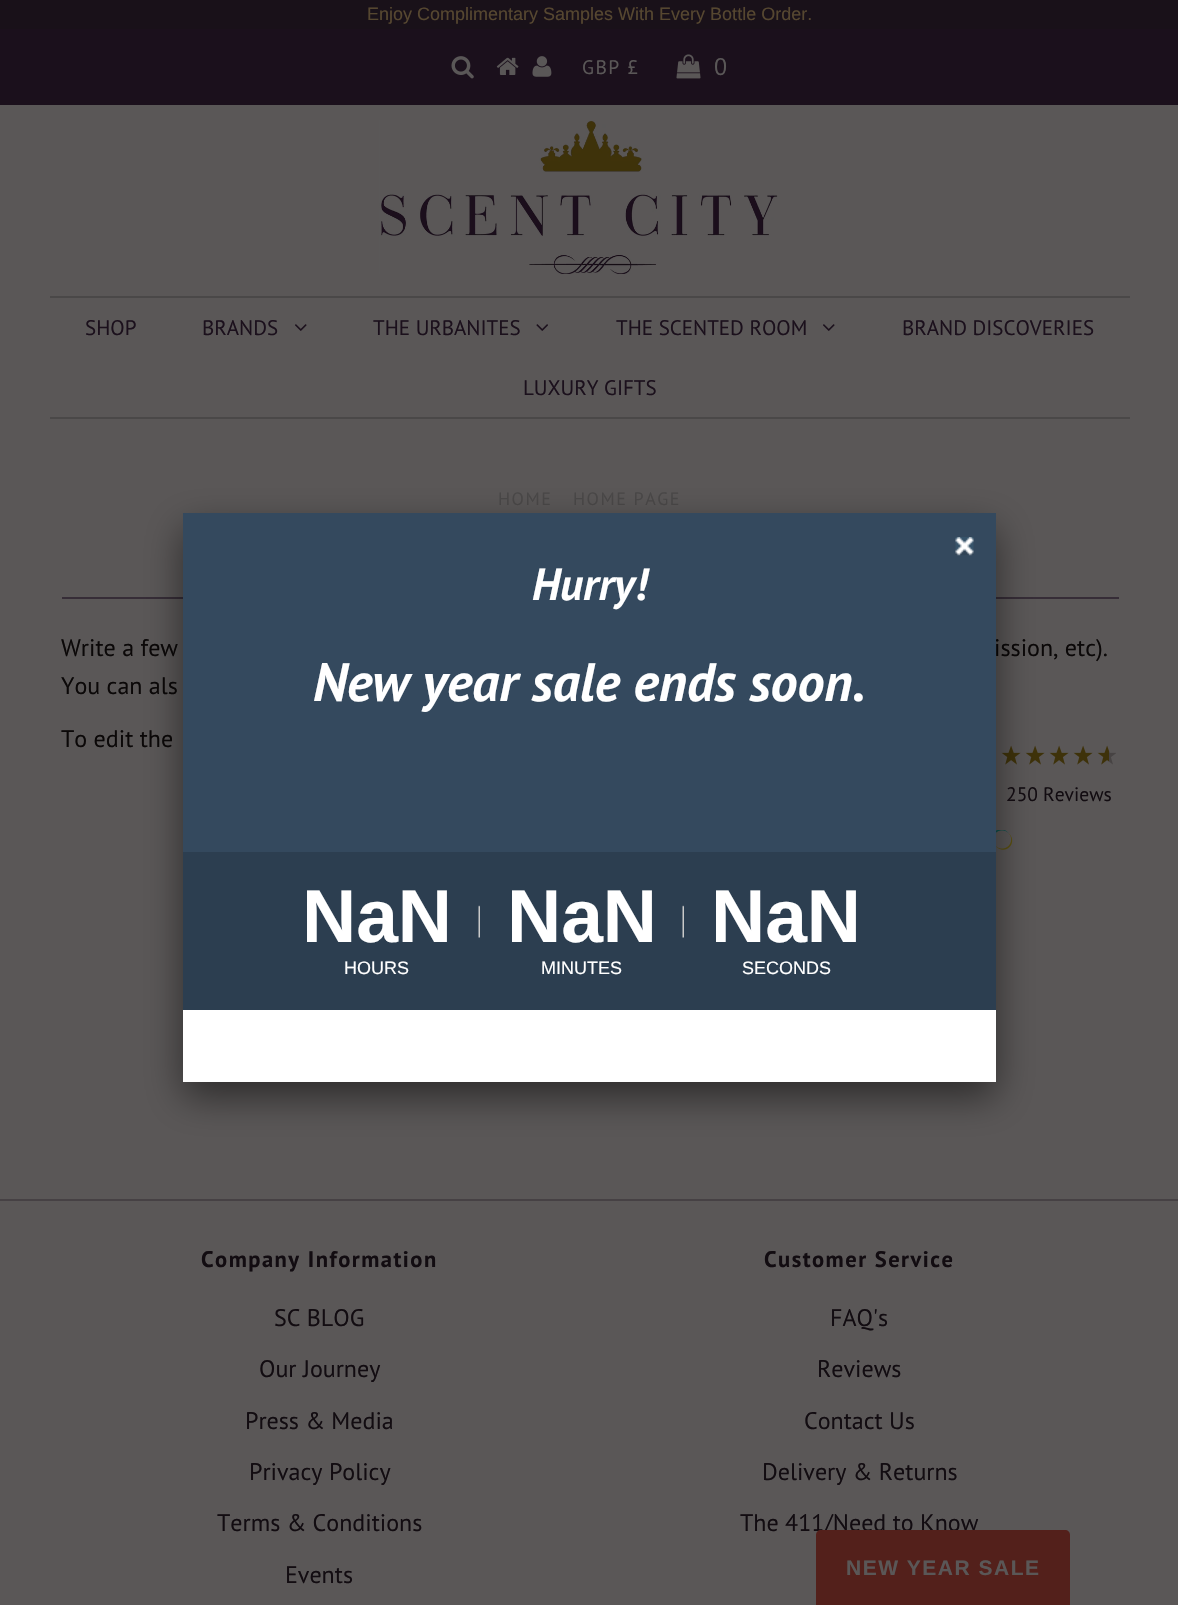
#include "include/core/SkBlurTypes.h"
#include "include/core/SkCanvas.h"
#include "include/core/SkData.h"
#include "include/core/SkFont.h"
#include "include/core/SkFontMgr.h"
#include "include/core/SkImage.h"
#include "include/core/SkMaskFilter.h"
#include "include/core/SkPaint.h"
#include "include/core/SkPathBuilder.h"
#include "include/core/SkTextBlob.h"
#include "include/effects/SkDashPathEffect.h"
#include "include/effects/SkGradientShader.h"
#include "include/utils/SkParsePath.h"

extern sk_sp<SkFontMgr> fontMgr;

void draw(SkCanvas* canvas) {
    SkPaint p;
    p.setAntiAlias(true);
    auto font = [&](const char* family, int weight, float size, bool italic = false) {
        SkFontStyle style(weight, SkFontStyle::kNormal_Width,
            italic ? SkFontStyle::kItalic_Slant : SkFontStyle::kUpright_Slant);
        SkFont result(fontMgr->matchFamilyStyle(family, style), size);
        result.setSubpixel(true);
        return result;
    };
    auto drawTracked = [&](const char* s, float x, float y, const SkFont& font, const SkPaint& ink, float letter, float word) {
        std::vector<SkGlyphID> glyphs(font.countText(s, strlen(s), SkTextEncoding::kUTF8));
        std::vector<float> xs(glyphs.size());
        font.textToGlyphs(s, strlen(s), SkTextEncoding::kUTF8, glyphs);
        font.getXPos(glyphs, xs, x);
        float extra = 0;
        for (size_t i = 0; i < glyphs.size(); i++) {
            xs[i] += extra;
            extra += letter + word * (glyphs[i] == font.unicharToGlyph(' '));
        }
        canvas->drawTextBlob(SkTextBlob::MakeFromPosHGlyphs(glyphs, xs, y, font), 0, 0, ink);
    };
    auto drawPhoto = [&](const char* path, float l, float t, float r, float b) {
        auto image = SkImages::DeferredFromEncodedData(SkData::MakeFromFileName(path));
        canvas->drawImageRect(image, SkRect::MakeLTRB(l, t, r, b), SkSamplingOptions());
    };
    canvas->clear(0xFF5A5757);
    p.setColor(0xFF191119);
    canvas->drawRect(SkRect::MakeLTRB(0, 0, 1178, 29), p);
    auto font1 = font("Liberation Sans", 400, 18);
    p.setColor(0xFF564730);
    canvas->drawString("Enjoy Complimentary Samples With Every Bottle Order.", 367, 20, font1, p);
    p.setColor(0xFF1B101C);
    canvas->drawRect(SkRect::MakeLTRB(0, 29, 1178, 105), p);
    drawPhoto("media/1.png", 451, 56, 474, 79);
    drawPhoto("media/2.png", 496, 57, 519, 75);
    drawPhoto("media/3.png", 532, 56, 552, 77);
    auto font2 = font("PT Sans", 400, 19.5f);
    p.setColor(0xFF5A5757);
    drawTracked("GBP £", 582, 74, font2, p, 1.5f, 0);
    drawPhoto("media/4.png", 676, 54, 701, 79);
    auto font3 = font("PT Sans", 400, 24);
    canvas->drawString("0", 714, 75, font3, p);
    drawPhoto("media/5.png", 379, 120, 778, 274);
    p.setColor(0xFF4A4848);
    canvas->drawRect(SkRect::MakeLTRB(50, 296, 1130, 298), p);
    canvas->drawRect(SkRect::MakeLTRB(50, 417, 1130, 419), p);
    auto font4 = font("PT Sans", 400, 21);
    p.setColor(0xFF1B101C);
    canvas->drawString("SHOP", 85, 335, font4, p);
    canvas->drawString("BRANDS", 202, 335, font4, p);
    drawPhoto("media/6.png", 295, 324, 307, 331);
    canvas->drawString("THE URBANITES", 373, 335, font4, p);
    drawPhoto("media/7.png", 536, 324, 548, 331);
    canvas->drawString("THE SCENTED ROOM", 616, 335, font4, p);
    drawPhoto("media/6.png", 823, 324, 835, 331);
    canvas->drawString("BRAND DISCOVERIES", 902, 335, font4, p);
    canvas->drawString("LUXURY GIFTS", 523, 395, font4, p);
    auto font5 = font("PT Sans", 400, 18);
    p.setColor(0xFF4A4848);
    drawTracked("HOME", 498, 505, font5, p, 1.5f, 0);
    drawTracked("HOME PAGE", 573, 505, font5, p, 1.5f, 0);
    p.setColor(0xFF362D37);
    canvas->drawRect(SkRect::MakeLTRB(62, 597, 1119, 599), p);
    p.setColor(0xFF0B0808);
    {
        const struct { const char* s; float x, y; } items[] = {
            {"Write a few", 61, 656},
            {"ission, etc).", 994, 656},
            {"You can als", 61, 694},
            {"To edit the", 61, 747},
        };
        for (auto [s, x, y] : items) {
            canvas->drawString(s, x, y, font3, p);
        }
    }
    p.setColor(0xFF464144);
    canvas->drawRect(SkRect::MakeLTRB(0, 1199, 1178, 1201), p);
    auto font6 = font("PT Sans", 700, 22.5f);
    p.setColor(0xFF120C11);
    drawTracked("Company Information", 201, 1267, font6, p, 1.5f, 0);
    {
        const struct { const char* s; float x, y; } items[] = {
            {"SC BLOG", 274, 1326},
            {"Our Journey", 259, 1377},
            {"Press & Media", 245, 1429},
            {"Privacy Policy", 249, 1480},
            {"Terms & Conditions", 217, 1531},
            {"Events", 285, 1583},
        };
        for (auto [s, x, y] : items) {
            canvas->drawString(s, x, y, font3, p);
        }
    }
    drawTracked("Customer Service", 764, 1267, font6, p, 1.5f, 0);
    {
        const struct { const char* s; float x, y; } items[] = {
            {"FAQ's", 830, 1326},
            {"Reviews", 817, 1377},
            {"Contact Us", 804, 1429},
            {"Delivery & Returns", 762, 1480},
            {"The 411/Need to Know", 740, 1531},
        };
        for (auto [s, x, y] : items) {
            canvas->drawString(s, x, y, font3, p);
        }
    }
    drawPhoto("media/10.png", 1001, 745, 1021, 765);
    drawPhoto("media/10.png", 1025, 745, 1045, 765);
    drawPhoto("media/10.png", 1049, 745, 1069, 765);
    drawPhoto("media/12.png", 996, 830, 1013, 850);
    p.setColor(0x80000000);
    p.setMaskFilter(SkMaskFilter::MakeBlur(kNormal_SkBlurStyle, 19));
    canvas->drawRoundRect(SkRect::MakeLTRB(183, 528, 996, 1097), 6, 6, p);
    p.setMaskFilter(nullptr);
    p.setColor(0xFF34495E);
    canvas->drawRect(SkRect::MakeLTRB(183, 513, 996, 852), p);
    drawPhoto("media/8.png", 955, 537, 974, 556);
    p.setColor(0xFFFFFFFF);
    canvas->drawRect(SkRect::MakeLTRB(183, 1010, 996, 1082), p);
    auto font7 = font("PT Sans", 700, 45, true);
    canvas->drawString("Hurry!", 532, 600, font7, p);
    auto font8 = font("PT Sans", 700, 54, true);
    canvas->drawString("New year sale ends soon.", 313, 701, font8, p);
    p.setColor(0xFF2C3E50);
    canvas->drawRect(SkRect::MakeLTRB(183, 852, 996, 1010), p);
    drawPhoto("media/9.png", 478, 905, 480, 938);
    auto font9 = font("Liberation Sans", 700, 75);
    p.setColor(0xFFFFFFFF);
    canvas->drawString("NaN", 302, 942, font9, p);
    canvas->drawString("HOURS", 344, 974, font1, p);
    drawPhoto("media/9.png", 682, 905, 684, 938);
    canvas->drawString("NaN", 507, 942, font9, p);
    canvas->drawString("MINUTES", 541, 974, font1, p);
    canvas->drawString("NaN", 711, 942, font9, p);
    canvas->drawString("SECONDS", 742, 974, font1, p);
    drawPhoto("media/10.png", 1073, 745, 1093, 765);
    drawPhoto("media/11.png", 1097, 745, 1116, 765);
    p.setColor(0xFF120C11);
    canvas->drawString("250 Reviews", 1006, 801, font2, p);
    p.setColor(0xFF53201B);
    canvas->drawPath(SkPathBuilder().moveTo(821, 1530).lineTo(1065, 1530).cubicTo(1068, 1530, 1070, 1532, 1070, 1535).lineTo(1070, 1605).lineTo(816, 1605).lineTo(816, 1535).cubicTo(816, 1532, 818, 1530, 821, 1530).close().detach(), p);
    auto font10 = font("Liberation Sans", 700, 21);
    p.setColor(0xFF5A5757);
    drawTracked("NEW YEAR SALE", 846, 1575, font10, p, 1.5f, 0);
}
